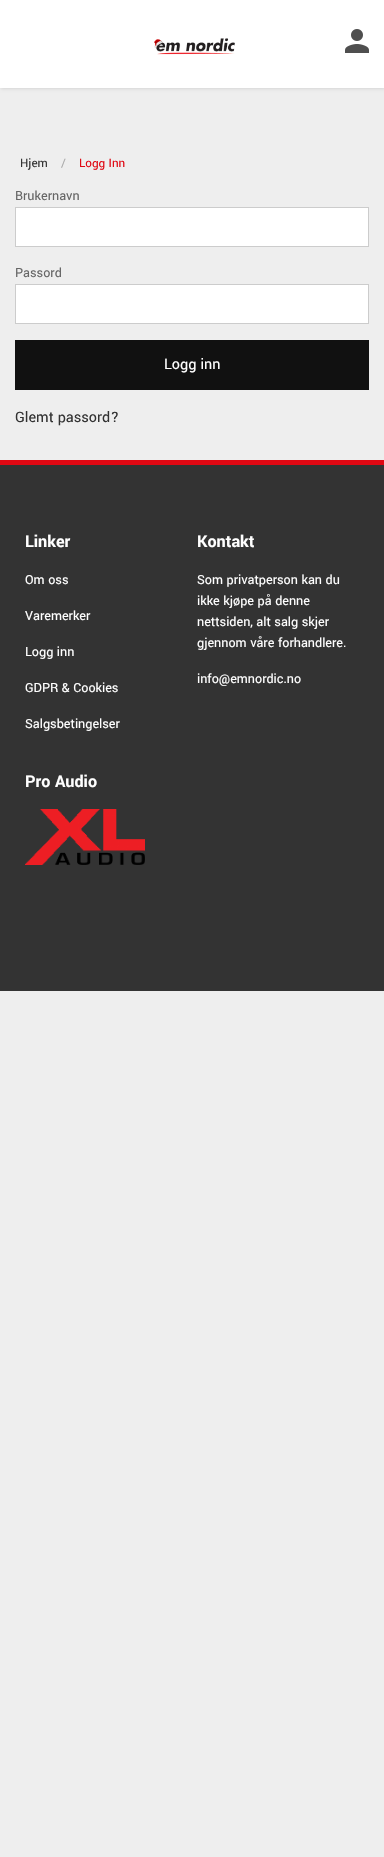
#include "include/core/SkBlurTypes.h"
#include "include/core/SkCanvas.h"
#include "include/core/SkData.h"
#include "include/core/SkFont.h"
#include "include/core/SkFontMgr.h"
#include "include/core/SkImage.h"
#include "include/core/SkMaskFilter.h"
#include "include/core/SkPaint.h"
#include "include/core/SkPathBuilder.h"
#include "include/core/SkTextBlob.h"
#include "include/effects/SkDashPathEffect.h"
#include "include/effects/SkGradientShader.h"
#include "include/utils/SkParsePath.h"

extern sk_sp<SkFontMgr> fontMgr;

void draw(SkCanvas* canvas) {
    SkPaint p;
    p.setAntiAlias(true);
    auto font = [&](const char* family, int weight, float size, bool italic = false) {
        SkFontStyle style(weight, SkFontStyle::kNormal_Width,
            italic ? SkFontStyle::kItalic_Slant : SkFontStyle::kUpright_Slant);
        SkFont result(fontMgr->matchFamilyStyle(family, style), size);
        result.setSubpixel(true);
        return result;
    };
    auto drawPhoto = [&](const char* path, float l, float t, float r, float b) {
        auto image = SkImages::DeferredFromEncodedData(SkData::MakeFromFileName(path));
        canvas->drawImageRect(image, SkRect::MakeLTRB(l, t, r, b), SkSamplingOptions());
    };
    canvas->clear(0xFFEEEEEE);
    p.setColor(0x1A000000);
    p.setMaskFilter(SkMaskFilter::MakeBlur(kNormal_SkBlurStyle, 1.5f));
    canvas->drawRect(SkRect::MakeLTRB(1, 1, 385, 89), p);
    p.setMaskFilter(nullptr);
    p.setColor(0xFFFFFFFF);
    canvas->drawRect(SkRect::MakeLTRB(0, 0, 384, 88), p);
    drawPhoto("media/1.png", 154, 38, 235, 55);
    drawPhoto("media/2.png", 345, 29, 369, 53);
    auto font1 = font("Yantramanav", 400, 13);
    p.setColor(0xFF333333);
    canvas->drawString("Hjem", 20, 167, font1, p);
    p.setColor(0xFFAAAAAA);
    canvas->drawString("/", 61, 167, font1, p);
    p.setColor(0xFFE00813);
    canvas->drawString("Logg Inn", 79, 167, font1, p);
    auto font2 = font("Yantramanav", 400, 14);
    p.setColor(0xFF666666);
    canvas->drawString("Brukernavn", 15, 200, font2, p);
    p.setColor(0xFFFFFFFF);
    canvas->drawRect(SkRect::MakeLTRB(15.5f, 207.5f, 368.5f, 246.5f), p);
    p.setStyle(SkPaint::kStroke_Style);
    p.setStrokeWidth(1);
    p.setColor(0xFFCCCCCC);
    canvas->drawRect(SkRect::MakeLTRB(15.5f, 207.5f, 368.5f, 246.5f), p);
    p.setStyle(SkPaint::kFill_Style);
    p.setColor(0xFF666666);
    canvas->drawString("Passord", 15, 277, font2, p);
    p.setColor(0xFFFFFFFF);
    canvas->drawRect(SkRect::MakeLTRB(15.5f, 284.5f, 368.5f, 323.5f), p);
    p.setStyle(SkPaint::kStroke_Style);
    p.setColor(0xFFCCCCCC);
    canvas->drawRect(SkRect::MakeLTRB(15.5f, 284.5f, 368.5f, 323.5f), p);
    p.setStyle(SkPaint::kFill_Style);
    p.setColor(0xFF111111);
    canvas->drawRect(SkRect::MakeLTRB(15, 340, 369, 390), p);
    auto font3 = font("Yantramanav", 400, 16);
    p.setColor(0xFFFFFFFF);
    canvas->drawString("Logg inn", 164, 369, font3, p);
    p.setColor(0xFF333333);
    canvas->drawString("Glemt passord?", 15, 422, font3, p);
    canvas->drawRect(SkRect::MakeLTRB(0, 465, 384, 991), p);
    p.setColor(0xFFE00813);
    canvas->drawRect(SkRect::MakeLTRB(0, 460, 384, 465), p);
    auto font4 = font("Yantramanav", 700, 18);
    p.setColor(0xFFFFFFFF);
    canvas->drawString("Linker", 25, 547, font4, p);
    {
        const struct { const char* s; float x, y; } items[] = {
            {"Om oss", 25, 584},
            {"Varemerker", 25, 620},
            {"Logg inn", 25, 656},
            {"GDPR & Cookies", 25, 692},
            {"Salgsbetingelser", 25, 728},
        };
        for (auto [s, x, y] : items) {
            canvas->drawString(s, x, y, font2, p);
        }
    }
    canvas->drawString("Kontakt", 197, 547, font4, p);
    {
        const struct { const char* s; float x, y; } items[] = {
            {"Som privatperson kan du", 197, 584},
            {"ikke kjøpe på denne", 197, 605},
            {"nettsiden, alt salg skjer", 197, 626},
            {"gjennom våre forhandlere.", 197, 647},
            {"info@emnordic.no", 197, 683},
        };
        for (auto [s, x, y] : items) {
            canvas->drawString(s, x, y, font2, p);
        }
    }
    canvas->drawString("Pro Audio", 25, 787, font4, p);
    drawPhoto("media/3.png", 25, 809, 145, 865);
}
